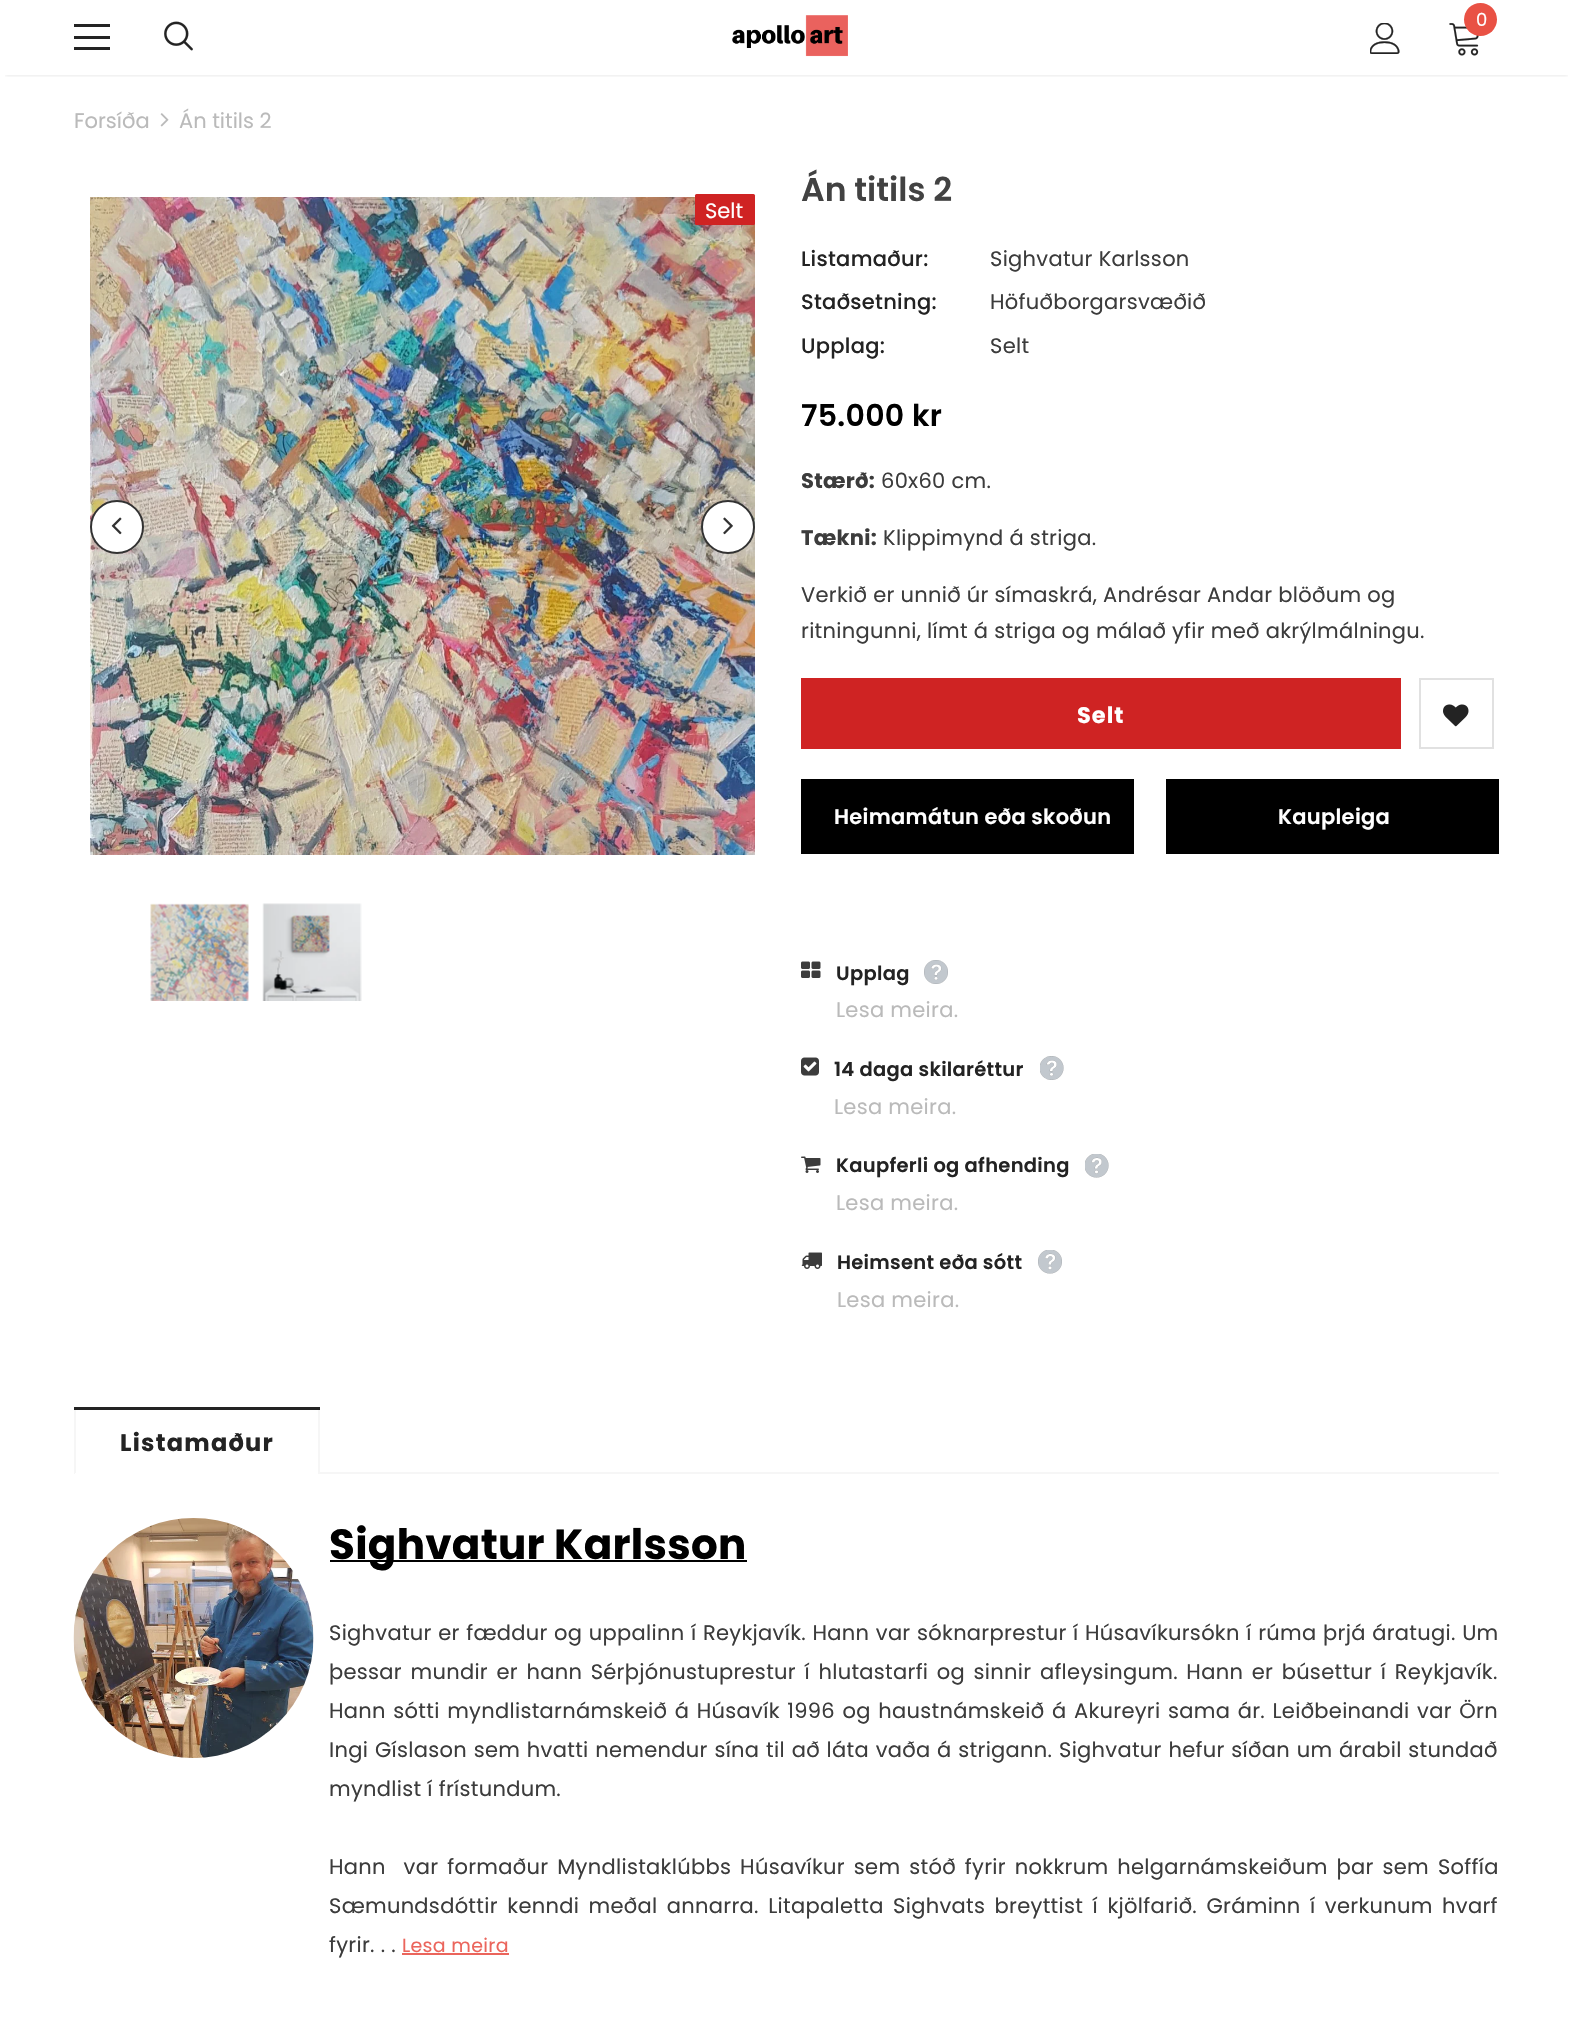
#include "include/core/SkBlurTypes.h"
#include "include/core/SkCanvas.h"
#include "include/core/SkData.h"
#include "include/core/SkFont.h"
#include "include/core/SkFontMgr.h"
#include "include/core/SkImage.h"
#include "include/core/SkMaskFilter.h"
#include "include/core/SkPaint.h"
#include "include/core/SkPathBuilder.h"
#include "include/core/SkTextBlob.h"
#include "include/effects/SkDashPathEffect.h"
#include "include/effects/SkGradientShader.h"
#include "include/utils/SkParsePath.h"

extern sk_sp<SkFontMgr> fontMgr;

void draw(SkCanvas* canvas) {
    SkPaint p;
    p.setAntiAlias(true);
    auto font = [&](const char* family, int weight, float size, bool italic = false) {
        SkFontStyle style(weight, SkFontStyle::kNormal_Width,
            italic ? SkFontStyle::kItalic_Slant : SkFontStyle::kUpright_Slant);
        SkFont result(fontMgr->matchFamilyStyle(family, style), size);
        result.setSubpixel(true);
        return result;
    };
    auto drawTracked = [&](const char* s, float x, float y, const SkFont& font, const SkPaint& ink, float letter, float word) {
        std::vector<SkGlyphID> glyphs(font.countText(s, strlen(s), SkTextEncoding::kUTF8));
        std::vector<float> xs(glyphs.size());
        font.textToGlyphs(s, strlen(s), SkTextEncoding::kUTF8, glyphs);
        font.getXPos(glyphs, xs, x);
        float extra = 0;
        for (size_t i = 0; i < glyphs.size(); i++) {
            xs[i] += extra;
            extra += letter + word * (glyphs[i] == font.unicharToGlyph(' '));
        }
        canvas->drawTextBlob(SkTextBlob::MakeFromPosHGlyphs(glyphs, xs, y, font), 0, 0, ink);
    };
    auto drawPhoto = [&](const char* path, float l, float t, float r, float b) {
        auto image = SkImages::DeferredFromEncodedData(SkData::MakeFromFileName(path));
        canvas->drawImageRect(image, SkRect::MakeLTRB(l, t, r, b), SkSamplingOptions());
    };
    canvas->clear(0xFFFFFFFF);
    canvas->save();
    canvas->clipRect(SkRect::MakeLTRB(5, 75, 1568, 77));
    p.setColor(0x1F000000);
    p.setMaskFilter(SkMaskFilter::MakeBlur(kNormal_SkBlurStyle, 2));
    canvas->drawRect(SkRect::MakeLTRB(5, 9, 1568, 75), p);
    p.setMaskFilter(nullptr);
    canvas->restore();
    {
        const struct { float l, t, r, b; SkColor color; } items[] = {
            {74, 24, 110, 27, 0xFF232323},
            {74, 36, 110, 39, 0xFF232323},
            {74, 47, 110, 50, 0xFF232323},
        };
        for (auto [l, t, r, b, color] : items) {
            p.setColor(color);
            canvas->drawRect(SkRect::MakeLTRB(l, t, r, b), p);
        }
    }
    drawPhoto("media/1.png", 164, 21, 193, 51);
    drawPhoto("media/2.png", 732, 15, 848, 57);
    drawPhoto("media/3.png", 1449, 23, 1479, 56);
    p.setColor(0xFFE95144);
    canvas->drawCircle(1480.5f, 19.5f, 16.5f, p);
    auto font1 = font("Poppins", 400, 18);
    p.setColor(0xFFFFFFFF);
    canvas->drawString("0", 1476, 26, font1, p);
    drawPhoto("media/4.png", 1370, 23, 1400, 54);
    auto font2 = font("Poppins", 400, 21);
    p.setColor(0xFFBABABA);
    canvas->drawString("Forsíða", 74, 128, font2, p);
    drawPhoto("media/5.png", 160, 113, 169, 127);
    canvas->drawString("Án titils 2", 179, 128, font2, p);
    drawPhoto("media/6.png", 90, 197, 755, 855);
    p.setColor(0xFFFFFFFF);
    canvas->drawCircle(117, 527, 26, p);
    p.setStyle(SkPaint::kStroke_Style);
    p.setStrokeWidth(2);
    p.setColor(0xFF323232);
    canvas->drawCircle(117, 527, 26, p);
    drawPhoto("media/7.png", 111, 517, 122, 535);
    p.setStyle(SkPaint::kFill_Style);
    p.setColor(0xFFFFFFFF);
    canvas->drawCircle(728, 527, 26, p);
    p.setStyle(SkPaint::kStroke_Style);
    p.setColor(0xFF323232);
    canvas->drawCircle(728, 527, 26, p);
    drawPhoto("media/8.png", 723, 517, 733, 535);
    p.setStyle(SkPaint::kFill_Style);
    p.setColor(0xFFCF2323);
    canvas->drawRoundRect(SkRect::MakeLTRB(695, 194, 755, 225), 1.5f, 1.5f, p);
    p.setColor(0xFFFFFFFF);
    canvas->drawString("Selt", 705, 218, font2, p);
    drawPhoto("media/9.png", 150, 903, 249, 1001);
    drawPhoto("media/10.png", 262, 903, 362, 1001);
    auto font3 = font("Poppins", 600, 33);
    p.setColor(0xFF424242);
    canvas->drawString("Án titils 2", 801, 201, font3, p);
    auto font4 = font("Poppins", 500, 21);
    p.setColor(0xFF232323);
    drawTracked("Listamaður:", 801, 266, font4, p, 0.3f, 0);
    p.setColor(0xFF3C3C3C);
    drawTracked("Sighvatur Karlsson", 990, 266, font2, p, 0.3f, 0);
    p.setColor(0xFF232323);
    drawTracked("Staðsetning:", 801, 309, font4, p, 0.3f, 0);
    p.setColor(0xFF3C3C3C);
    drawTracked("Höfuðborgarsvæðið", 990, 309, font2, p, 0.3f, 0);
    p.setColor(0xFF232323);
    drawTracked("Upplag:", 801, 353, font4, p, 0.3f, 0);
    p.setColor(0xFF3C3C3C);
    drawTracked("Selt", 990, 353, font2, p, 0.3f, 0);
    auto font5 = font("Poppins", 600, 30);
    p.setColor(0xFF000000);
    drawTracked("75.000 kr", 801, 426, font5, p, 0.3f, 0);
    auto font6 = font("Poppins", 700, 21);
    p.setColor(0xFF3C3C3C);
    drawTracked("Stærð:", 801, 488, font6, p, 0.3f, 0);
    drawTracked("60x60 cm.", 881, 488, font2, p, 0.3f, 0);
    drawTracked("Tækni:", 801, 545, font6, p, 0.3f, 0);
    {
        const struct { const char* s; float x, y; } items[] = {
            {"Klippimynd á striga.", 883, 545},
            {"Verkið er unnið úr símaskrá, Andrésar Andar blöðum og", 801, 602},
            {"ritningunni, límt á striga og málað yfir með akrýlmálningu.", 801, 638},
        };
        for (auto [s, x, y] : items) {
            drawTracked(s, x, y, font2, p, 0.3f, 0);
        }
    }
    p.setColor(0xFFCF2323);
    canvas->drawRect(SkRect::MakeLTRB(801, 678, 1401, 749), p);
    auto font7 = font("Poppins", 700, 22.5f);
    p.setColor(0xFFFFFFFF);
    drawTracked("Selt", 1077, 723, font7, p, 1, 0);
    p.setStyle(SkPaint::kStroke_Style);
    p.setColor(0xFFE1E1E1);
    canvas->drawRect(SkRect::MakeLTRB(1420, 679, 1493, 748), p);
    drawPhoto("media/11.png", 1443, 704, 1469, 727);
    p.setStyle(SkPaint::kFill_Style);
    p.setColor(0xFF000000);
    canvas->drawRect(SkRect::MakeLTRB(801, 779, 1134, 854), p);
    auto font8 = font("Poppins", 600, 21);
    p.setColor(0xFFFFFFFF);
    drawTracked("Heimamátun eða skoðun", 834, 824, font8, p, 0.3f, 0);
    p.setColor(0xFF000000);
    canvas->drawRect(SkRect::MakeLTRB(1166, 779, 1499, 854), p);
    p.setColor(0xFFFFFFFF);
    drawTracked("Kaupleiga", 1278, 824, font8, p, 0.3f, 0);
    drawPhoto("media/12.png", 801, 961, 821, 978);
    auto font9 = font("Poppins", 600, 19.5f);
    p.setColor(0xFF232323);
    drawTracked("Upplag", 836, 980, font9, p, 0.3f, 0);
    drawPhoto("media/13.png", 924, 960, 948, 984);
    p.setColor(0xFFBABABA);
    drawTracked("Lesa meira.", 836, 1017, font2, p, 0.3f, 0);
    drawPhoto("media/14.png", 801, 1057, 819, 1076);
    p.setColor(0xFF232323);
    drawTracked("14 daga skilaréttur", 834, 1076, font9, p, 0.3f, 0);
    drawPhoto("media/15.png", 1040, 1056, 1064, 1080);
    p.setColor(0xFFBABABA);
    drawTracked("Lesa meira.", 834, 1114, font2, p, 0.3f, 0);
    drawPhoto("media/16.png", 801, 1156, 821, 1173);
    p.setColor(0xFF232323);
    drawTracked("Kaupferli og afhending", 836, 1172, font9, p, 0.3f, 0);
    drawPhoto("media/17.png", 1085, 1154, 1109, 1178);
    p.setColor(0xFFBABABA);
    drawTracked("Lesa meira.", 836, 1210, font2, p, 0.3f, 0);
    drawPhoto("media/18.png", 801, 1252, 822, 1269);
    p.setColor(0xFF232323);
    drawTracked("Heimsent eða sótt", 837, 1269, font9, p, 0.3f, 0);
    drawPhoto("media/19.png", 1038, 1250, 1062, 1274);
    p.setColor(0xFFBABABA);
    drawTracked("Lesa meira.", 837, 1307, font2, p, 0.3f, 0);
    {
        const struct { float l, t, r, b; SkColor color; } items[] = {
            {74, 1472, 1499, 1474, 0xFFF6F6F6},
            {76, 1472, 318, 1473, 0xFFFFFFFF},
            {318, 1407, 320, 1473, 0xFFF6F6F6},
            {74, 1407, 76, 1473, 0xFFF6F6F6},
            {74, 1407, 320, 1410, 0xFF232323},
        };
        for (auto [l, t, r, b, color] : items) {
            p.setColor(color);
            canvas->drawRect(SkRect::MakeLTRB(l, t, r, b), p);
        }
    }
    auto font10 = font("Poppins", 700, 24);
    drawTracked("Listamaður", 120, 1451, font10, p, 1.25f, 0);
    p.setColor(0xFFFFFFFF);
    canvas->drawRect(SkRect::MakeLTRB(75, 1473, 318, 1474), p);
    drawPhoto("media/20.png", 73, 1518, 314, 1758);
    p.setColor(0xFF000000);
    canvas->drawRect(SkRect::MakeLTRB(330, 1560, 747, 1562), p);
    auto font11 = font("Poppins", 700, 42);
    drawTracked("Sighvatur Karlsson", 329, 1559, font11, p, 0.3f, 0);
    p.setColor(0xFF3C3C3C);
    drawTracked("Sighvatur er fæddur og uppalinn í Reykjavík. Hann var sóknarprestur í Húsavíkursókn í rúma þrjá áratugi. Um", 329, 1640, font2, p, 0.3f, 0.6f);
    drawTracked("þessar mundir er hann Sérþjónustuprestur í hlutastarfi og sinnir afleysingum. Hann er búsettur í Reykjavík.", 329, 1679, font2, p, 0.3f, 2.6f);
    drawTracked("Hann sótti myndlistarnámskeið á Húsavík 1996 og haustnámskeið á Akureyri sama ár. Leiðbeinandi var Örn", 329, 1718, font2, p, 0.3f, 1.6f);
    drawTracked("Ingi Gíslason sem hvatti nemendur sína til að láta vaða á strigann. Sighvatur hefur síðan um árabil stundað", 329, 1757, font2, p, 0.3f, 0.8f);
    drawTracked("myndlist í frístundum.", 329, 1796, font2, p, 0.3f, 0);
    drawTracked("Hann  var formaður Myndlistaklúbbs Húsavíkur sem stóð fyrir nokkrum helgarnámskeiðum þar sem Soffía", 329, 1874, font2, p, 0.3f, 3);
    drawTracked("Sæmundsdóttir kenndi meðal annarra. Litapaletta Sighvats breyttist í kjölfarið. Gráminn í verkunum hvarf", 329, 1913, font2, p, 0.3f, 3.5f);
    drawTracked("fyrir. . .", 329, 1952, font2, p, 0.3f, 0);
    auto font12 = font("Poppins", 400, 19);
    p.setColor(0xFFEB655C);
    drawTracked("Lesa meira", 402, 1952, font12, p, 0.3f, 0);
    canvas->drawRect(SkRect::MakeLTRB(402, 1953, 509, 1955), p);
}
